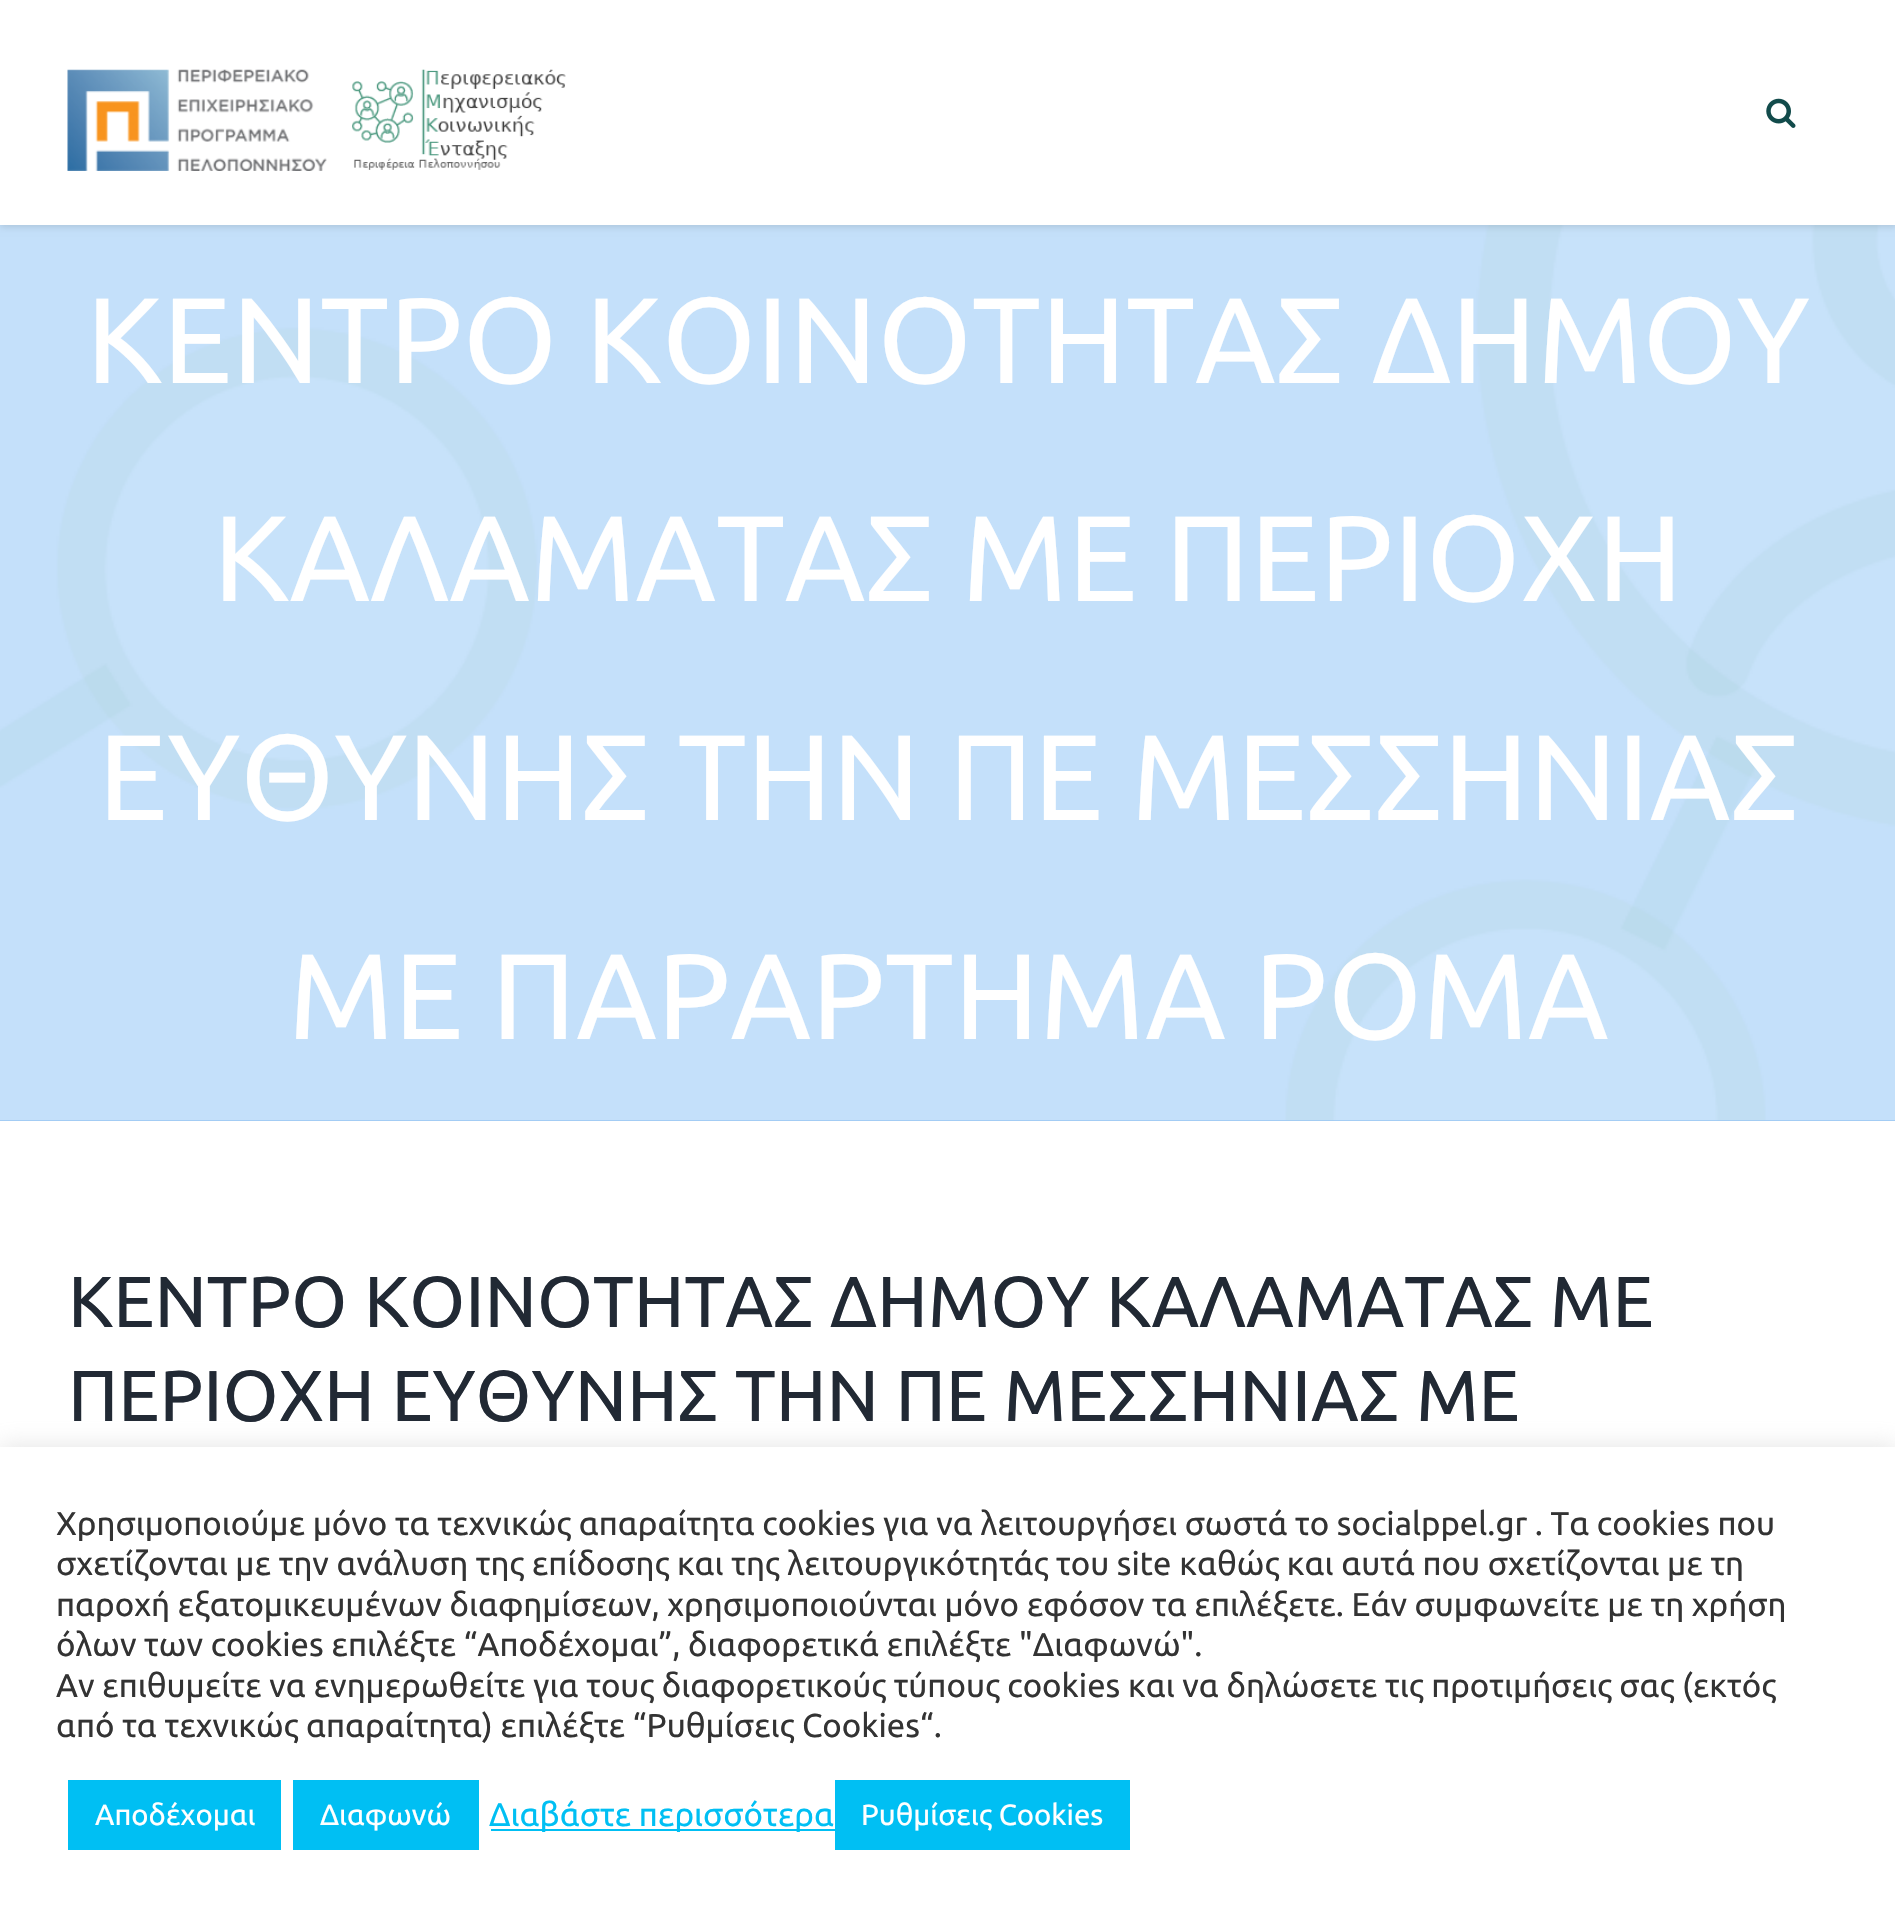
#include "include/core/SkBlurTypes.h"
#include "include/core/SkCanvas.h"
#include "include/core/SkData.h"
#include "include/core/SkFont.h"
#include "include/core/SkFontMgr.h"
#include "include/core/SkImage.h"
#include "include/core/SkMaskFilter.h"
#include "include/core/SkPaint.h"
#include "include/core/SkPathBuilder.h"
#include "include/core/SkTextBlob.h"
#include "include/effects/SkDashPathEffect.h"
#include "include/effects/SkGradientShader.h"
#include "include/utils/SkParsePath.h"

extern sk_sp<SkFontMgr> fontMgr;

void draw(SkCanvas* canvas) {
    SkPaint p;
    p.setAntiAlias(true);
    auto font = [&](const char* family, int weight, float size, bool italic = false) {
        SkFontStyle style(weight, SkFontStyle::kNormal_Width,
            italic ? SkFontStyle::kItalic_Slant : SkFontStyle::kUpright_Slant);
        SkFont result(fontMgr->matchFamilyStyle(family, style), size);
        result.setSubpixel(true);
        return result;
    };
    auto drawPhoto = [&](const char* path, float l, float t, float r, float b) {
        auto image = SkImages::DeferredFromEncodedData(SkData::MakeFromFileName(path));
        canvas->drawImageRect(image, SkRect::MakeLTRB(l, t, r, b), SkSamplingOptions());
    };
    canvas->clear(0xFFFFFFFF);
    p.setColor(0xFF98C6F2);
    canvas->drawRect(SkRect::MakeLTRB(0, 1120, 1895, 1121), p);
    drawPhoto("media/3.png", 0, 225, 1895, 1121);
    p.setColor(0x1F000000);
    p.setMaskFilter(SkMaskFilter::MakeBlur(kNormal_SkBlurStyle, 3.5f));
    canvas->drawRect(SkRect::MakeLTRB(0, 2, 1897, 227), p);
    p.setMaskFilter(nullptr);
    p.setColor(0xFFFFFFFF);
    canvas->drawRect(SkRect::MakeLTRB(0, 0, 1895, 225), p);
    drawPhoto("media/1.png", 67, 69, 566, 171);
    drawPhoto("media/2.png", 1766, 98, 1796, 128);
    auto font1 = font("Ubuntu", 400, 121.5f);
    {
        const struct { const char* s; float x, y; } items[] = {
            {"ΚΕΝΤΡΟ ΚΟΙΝΟΤΗΤΑΣ ΔΗΜΟΥ", 86, 383},
            {"ΚΑΛΑΜΑΤΑΣ ΜΕ ΠΕΡΙΟΧΗ", 213, 601},
            {"ΕΥΘΥΝΗΣ ΤΗΝ ΠΕ ΜΕΣΣΗΝΙΑΣ", 98, 820},
            {"ΜΕ ΠΑΡΑΡΤΗΜΑ ΡΟΜΑ", 288, 1039},
        };
        for (auto [s, x, y] : items) {
            canvas->drawString(s, x, y, font1, p);
        }
    }
    auto font2 = font("Ubuntu", 400, 72);
    p.setColor(0xFF212934);
    canvas->drawString("ΚΕΝΤΡΟ ΚΟΙΝΟΤΗΤΑΣ ΔΗΜΟΥ ΚΑΛΑΜΑΤΑΣ ΜΕ", 68, 1327, font2, p);
    canvas->drawString("ΠΕΡΙΟΧΗ ΕΥΘΥΝΗΣ ΤΗΝ ΠΕ ΜΕΣΣΗΝΙΑΣ ΜΕ", 68, 1421, font2, p);
    p.setColor(0x4DACABAB);
    p.setMaskFilter(SkMaskFilter::MakeBlur(kNormal_SkBlurStyle, 11));
    canvas->drawRect(SkRect::MakeLTRB(0, 1445, 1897, 1915), p);
    p.setMaskFilter(nullptr);
    p.setColor(0xFFFFFFFF);
    canvas->drawRect(SkRect::MakeLTRB(0, 1447, 1895, 1915), p);
    auto font3 = font("Ubuntu", 400, 33);
    p.setColor(0xFF333333);
    {
        const struct { const char* s; float x, y; } items[] = {
            {"Χρησιμοποιούμε μόνο τα τεχνικώς απαραίτητα cookies για να λειτουργήσει σωστά το socialppel.gr . Τα cookies που", 56, 1535},
            {"σχετίζονται με την ανάλυση της επίδοσης και της λειτουργικότητάς του site καθώς και αυτά που σχετίζονται με τη", 56, 1575},
            {"παροχή εξατομικευμένων διαφημίσεων, χρησιμοποιούνται μόνο εφόσον τα επιλέξετε. Εάν συμφωνείτε με τη χρήση", 56, 1616},
            {"όλων των cookies επιλέξτε “Αποδέχομαι”, διαφορετικά επιλέξτε", 56, 1656},
            {"\"Διαφωνώ\".", 1019, 1656},
            {"Αν επιθυμείτε να ενημερωθείτε για τους διαφορετικούς τύπους cookies και να δηλώσετε τις προτιμήσεις σας (εκτός", 56, 1697},
            {"από τα τεχνικώς απαραίτητα) επιλέξτε “Ρυθμίσεις Cookies“.", 56, 1737},
        };
        for (auto [s, x, y] : items) {
            canvas->drawString(s, x, y, font3, p);
        }
    }
    p.setColor(0xFF00BFF3);
    canvas->drawRect(SkRect::MakeLTRB(68, 1780, 281, 1850), p);
    auto font4 = font("Ubuntu", 400, 29.25f);
    p.setColor(0xFFFFFFFF);
    canvas->drawString("Αποδέχομαι", 95, 1825, font4, p);
    p.setColor(0xFF00BFF3);
    canvas->drawRect(SkRect::MakeLTRB(293, 1780, 479, 1850), p);
    p.setColor(0xFFFFFFFF);
    canvas->drawString("Διαφωνώ", 320, 1825, font4, p);
    p.setColor(0xFF00BFF3);
    canvas->drawRect(SkRect::MakeLTRB(491, 1829, 835, 1831), p);
    canvas->drawString("Διαβάστε περισσότερα", 489, 1826, font3, p);
    canvas->drawRect(SkRect::MakeLTRB(835, 1780, 1130, 1850), p);
    p.setColor(0xFFFFFFFF);
    canvas->drawString("Ρυθμίσεις Cookies", 861, 1825, font4, p);
}
